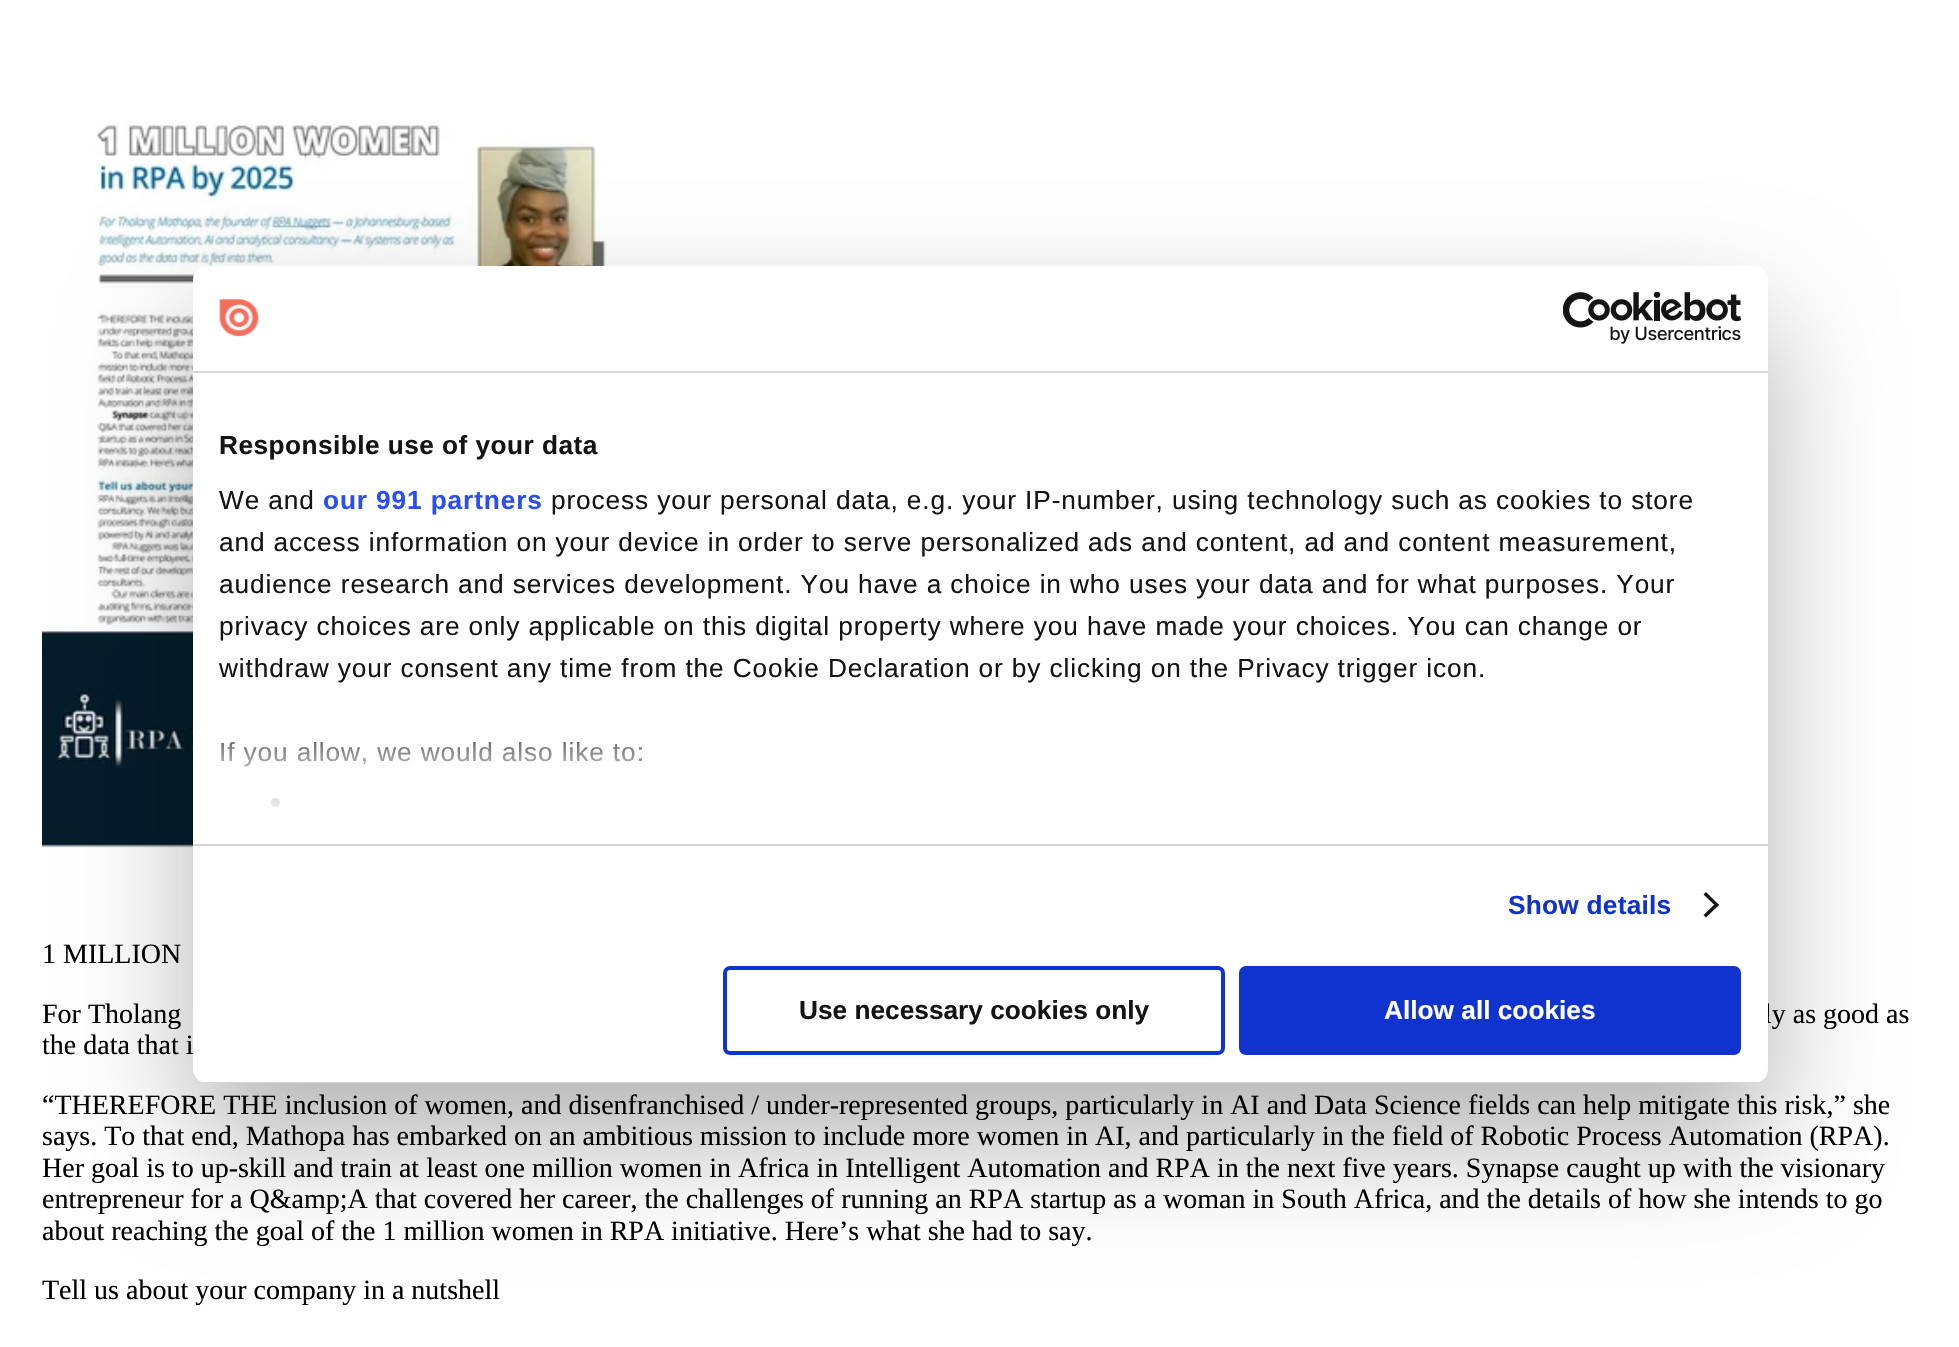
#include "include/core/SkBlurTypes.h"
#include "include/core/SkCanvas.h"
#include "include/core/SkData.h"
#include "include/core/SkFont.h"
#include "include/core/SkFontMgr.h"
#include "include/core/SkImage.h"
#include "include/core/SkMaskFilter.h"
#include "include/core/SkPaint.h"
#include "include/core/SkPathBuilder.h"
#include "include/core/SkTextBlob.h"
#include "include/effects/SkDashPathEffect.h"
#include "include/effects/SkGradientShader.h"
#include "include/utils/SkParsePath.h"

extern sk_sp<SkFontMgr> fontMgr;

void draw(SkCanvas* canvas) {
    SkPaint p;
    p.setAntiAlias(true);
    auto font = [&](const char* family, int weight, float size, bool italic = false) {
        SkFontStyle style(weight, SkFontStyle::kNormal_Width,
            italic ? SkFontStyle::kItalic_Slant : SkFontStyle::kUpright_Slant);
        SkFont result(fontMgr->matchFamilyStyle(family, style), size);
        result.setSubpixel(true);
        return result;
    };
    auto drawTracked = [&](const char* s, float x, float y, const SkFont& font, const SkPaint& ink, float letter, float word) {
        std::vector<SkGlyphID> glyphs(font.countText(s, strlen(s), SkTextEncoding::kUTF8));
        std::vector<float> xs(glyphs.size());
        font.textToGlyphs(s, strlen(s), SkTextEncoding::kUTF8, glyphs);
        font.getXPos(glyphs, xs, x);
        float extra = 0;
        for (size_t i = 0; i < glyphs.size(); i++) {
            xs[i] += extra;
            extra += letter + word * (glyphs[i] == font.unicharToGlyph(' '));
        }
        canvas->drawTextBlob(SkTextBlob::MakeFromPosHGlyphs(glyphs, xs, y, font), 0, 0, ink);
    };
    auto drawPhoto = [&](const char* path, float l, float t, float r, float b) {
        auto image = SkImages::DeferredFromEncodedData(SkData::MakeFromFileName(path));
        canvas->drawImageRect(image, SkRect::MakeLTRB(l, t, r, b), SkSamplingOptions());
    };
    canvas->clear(0xFFFFFFFF);
    drawPhoto("media/3.png", 42, 121, 606, 848);
    p.setColor(0x4D000000);
    p.setMaskFilter(SkMaskFilter::MakeBlur(kNormal_SkBlurStyle, 59.5f));
    canvas->drawRoundRect(SkRect::MakeLTRB(193, 322, 1768, 1139), 14, 14, p);
    p.setMaskFilter(nullptr);
    auto font1 = font("Liberation Serif", 400, 28);
    p.setColor(0xFF000000);
    canvas->drawString("ly as good as", 1764, 1023, font1, p);
    canvas->drawString("the data that i", 42, 1054, font1, p);
    p.setColor(0xFFFFFFFF);
    canvas->drawRoundRect(SkRect::MakeLTRB(193, 266, 1768, 1083), 14, 14, p);
    p.setColor(0xFFD6D6D6);
    canvas->drawRect(SkRect::MakeLTRB(193, 371, 1768, 373), p);
    drawPhoto("media/1.png", 219, 299, 259, 337);
    drawPhoto("media/2.png", 1563, 292, 1741, 344);
    canvas->drawRect(SkRect::MakeLTRB(193, 844, 1768, 846), p);
    auto font2 = font("Liberation Sans", 700, 26.25f);
    p.setColor(0xFF141414);
    drawTracked("Responsible use of your data", 219, 454, font2, p, 0.45f, 0);
    auto font3 = font("Liberation Sans", 400, 26.25f);
    drawTracked("We and", 219, 509, font3, p, 0.88f, 0);
    p.setColor(0xFF2A4EEF);
    drawTracked("our 991 partners", 323, 509, font2, p, 0.88f, 0);
    p.setColor(0xFF141414);
    {
        const struct { const char* s; float x, y; } items[] = {
            {"process your personal data, e.g. your IP-number, using technology such as cookies to store", 551, 509},
            {"and access information on your device in order to serve personalized ads and content, ad and content measurement,", 219, 551},
            {"audience research and services development. You have a choice in who uses your data and for what purposes. Your", 219, 593},
            {"privacy choices are only applicable on this digital property where you have made your choices. You can change or", 219, 635},
            {"withdraw your consent any time from the Cookie Declaration or by clicking on the Privacy trigger icon.", 219, 677},
            {"If you allow, we would also like to:", 219, 761},
        };
        for (auto [s, x, y] : items) {
            drawTracked(s, x, y, font3, p, 0.88f, 0);
        }
    }
    canvas->drawCircle(275.5f, 802.5f, 4.5f, p);
    {
        const SkColor colors[] = {0xFFFFFFFF, 0xCCFFFFFF, 0x00FFFFFF};
        const float stops[] = {0, 0.5f, 1};
        const SkPoint ends[] = {{969, 843}, {969, 711}};
        p.setShader(SkGradientShader::MakeLinear(ends, colors, stops, 3, SkTileMode::kClamp));
        p.setAlpha(255);
    }
    canvas->drawRect(SkRect::MakeLTRB(221, 742, 641, 807), p);
    p.setShader(nullptr);
    p.setColor(0xFF1032CF);
    drawTracked("Show details", 1508, 914, font2, p, 0.25f, 0);
    p.setColor(0xFF141414);
    canvas->drawPath(SkPathBuilder().moveTo(1706, 892).lineTo(1719, 905).lineTo(1716.5f, 907).lineTo(1703.5f, 894.5f).close().detach(), p);
    canvas->drawPath(SkPathBuilder().moveTo(1716.5f, 902.5f).lineTo(1719, 905).lineTo(1706, 917.5f).lineTo(1703.5f, 915).close().detach(), p);
    canvas->save();
    canvas->clipPath(SkPathBuilder().moveTo(207, 266).lineTo(1754, 266).cubicTo(1761.5f, 266, 1768, 272.5f, 1768, 280).lineTo(1768, 1069).cubicTo(1768, 1076.5f, 1761.5f, 1083, 1754, 1083).lineTo(207, 1083).cubicTo(199.5f, 1083, 193, 1076.5f, 193, 1069).lineTo(193, 280).cubicTo(193, 272.5f, 199.5f, 266, 207, 266).close().detach(), true);
    p.setColor(0xFFD6D6D6);
    canvas->drawRect(SkRect::MakeLTRB(202, 1082, 1759, 1083), p);
    canvas->restore();
    p.setStyle(SkPaint::kStroke_Style);
    p.setStrokeWidth(4);
    p.setColor(0xFF1032CF);
    canvas->drawRoundRect(SkRect::MakeLTRB(725, 968, 1223, 1053), 5, 5, p);
    p.setStyle(SkPaint::kFill_Style);
    p.setColor(0xFF141414);
    canvas->drawString("Use necessary cookies only", 799, 1019, font2, p);
    p.setColor(0xFF1032CF);
    canvas->drawRoundRect(SkRect::MakeLTRB(1241, 968, 1739, 1053), 5, 5, p);
    p.setStyle(SkPaint::kStroke_Style);
    canvas->drawRoundRect(SkRect::MakeLTRB(1241, 968, 1739, 1053), 5, 5, p);
    p.setStyle(SkPaint::kFill_Style);
    p.setColor(0xFFFFFFFF);
    canvas->drawString("Allow all cookies", 1384, 1019, font2, p);
    p.setColor(0xFF000000);
    {
        const struct { const char* s; float x, y; } items[] = {
            {"1 MILLION", 42, 963},
            {"For Tholang", 42, 1023},
            {"“THEREFORE THE inclusion of women, and disenfranchised / under-represented groups, particularly in AI and Data Science fields can help mitigate this risk,” she", 42, 1114},
            {"says. To that end, Mathopa has embarked on an ambitious mission to include more women in AI, and particularly in the field of Robotic Process Automation (RPA).", 42, 1145},
            {"Her goal is to up-skill and train at least one million women in Africa in Intelligent Automation and RPA in the next five years. Synapse caught up with the visionary", 42, 1177},
            {"entrepreneur for a Q&amp;A that covered her career, the challenges of running an RPA startup as a woman in South Africa, and the details of how she intends to go", 42, 1208},
            {"about reaching the goal of the 1 million women in RPA initiative. Here’s what she had to say.", 42, 1240},
            {"Tell us about your company in a nutshell", 42, 1299},
        };
        for (auto [s, x, y] : items) {
            canvas->drawString(s, x, y, font1, p);
        }
    }
}
